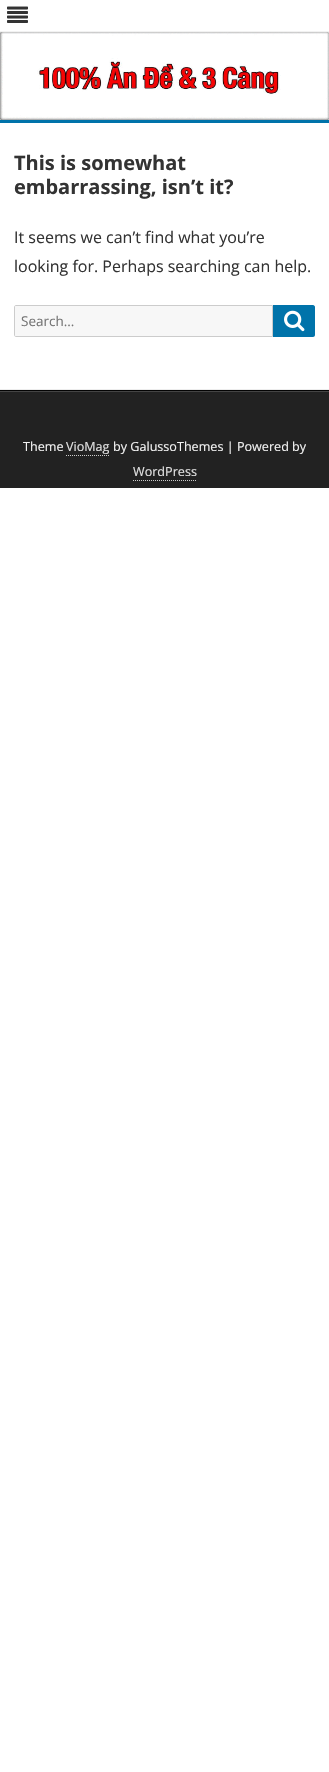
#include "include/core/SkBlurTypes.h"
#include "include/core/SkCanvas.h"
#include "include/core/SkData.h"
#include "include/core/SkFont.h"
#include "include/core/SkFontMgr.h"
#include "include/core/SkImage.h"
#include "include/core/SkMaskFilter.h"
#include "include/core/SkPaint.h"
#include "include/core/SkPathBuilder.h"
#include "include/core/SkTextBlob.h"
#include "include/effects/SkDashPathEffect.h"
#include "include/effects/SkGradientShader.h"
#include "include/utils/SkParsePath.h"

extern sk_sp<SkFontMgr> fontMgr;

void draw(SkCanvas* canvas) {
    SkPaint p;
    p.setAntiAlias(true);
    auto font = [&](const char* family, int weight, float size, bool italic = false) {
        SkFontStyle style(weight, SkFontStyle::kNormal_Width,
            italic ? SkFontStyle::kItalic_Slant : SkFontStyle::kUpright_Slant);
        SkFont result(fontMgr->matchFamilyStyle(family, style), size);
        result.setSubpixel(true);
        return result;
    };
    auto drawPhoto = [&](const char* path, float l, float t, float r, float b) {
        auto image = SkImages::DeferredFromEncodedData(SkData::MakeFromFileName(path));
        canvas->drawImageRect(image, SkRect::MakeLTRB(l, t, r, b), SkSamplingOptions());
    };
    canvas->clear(0xFFFFFFFF);
    p.setColor(0xFFF2F2F2);
    canvas->drawRect(SkRect::MakeLTRB(0, 31, 329, 32), p);
    drawPhoto("media/1.png", 7, 6, 28, 23);
    drawPhoto("media/2.png", 0, 32, 329, 120);
    p.setColor(0xFF0073AA);
    canvas->drawRect(SkRect::MakeLTRB(0, 120, 329, 123), p);
    auto font1 = font("Open Sans", 700, 20);
    p.setColor(0xFF333333);
    canvas->drawString("This is somewhat", 14, 170, font1, p);
    canvas->drawString("embarrassing, isn’t it?", 14, 194, font1, p);
    auto font2 = font("Open Sans", 400, 16);
    canvas->drawString("It seems we can’t find what you’re", 14, 243, font2, p);
    canvas->drawString("looking for. Perhaps searching can help.", 14, 272, font2, p);
    p.setColor(0xFFF7F7F7);
    canvas->drawPath(SkPathBuilder().moveTo(16, 305.5f).lineTo(272.5f, 305.5f).lineTo(272.5f, 336.5f).lineTo(16, 336.5f).cubicTo(15, 336.5f, 14.5f, 336, 14.5f, 335).lineTo(14.5f, 307).cubicTo(14.5f, 306, 15, 305.5f, 16, 305.5f).close().detach(), p);
    p.setStyle(SkPaint::kStroke_Style);
    p.setStrokeWidth(1);
    p.setColor(0xFFCCCCCC);
    canvas->drawPath(SkPathBuilder().moveTo(16, 305.5f).lineTo(272.5f, 305.5f).lineTo(272.5f, 336.5f).lineTo(16, 336.5f).cubicTo(15, 336.5f, 14.5f, 336, 14.5f, 335).lineTo(14.5f, 307).cubicTo(14.5f, 306, 15, 305.5f, 16, 305.5f).close().detach(), p);
    auto font3 = font("Open Sans", 400, 13.5f);
    p.setStyle(SkPaint::kFill_Style);
    p.setColor(0xFF757575);
    canvas->drawString("Search...", 21, 326, font3, p);
    p.setColor(0xFF0073AA);
    canvas->drawPath(SkPathBuilder().moveTo(273, 305).lineTo(313, 305).cubicTo(314, 305, 315, 306, 315, 307).lineTo(315, 335).cubicTo(315, 336, 314, 337, 313, 337).lineTo(273, 337).close().detach(), p);
    drawPhoto("media/3.png", 284, 310, 305, 332);
    {
        const struct { float l, t, r, b; SkColor color; } items[] = {
            {0, 392, 329, 488, 0xFF222222},
            {0, 389, 329, 390, 0xFFEDEDED},
            {0, 390, 329, 391, 0xFF040404},
            {0, 391, 329, 392, 0xFF444444},
        };
        for (auto [l, t, r, b, color] : items) {
            p.setColor(color);
            canvas->drawRect(SkRect::MakeLTRB(l, t, r, b), p);
        }
    }
    auto font4 = font("Open Sans", 400, 12.6f);
    p.setColor(0xFFF2F2F2);
    canvas->drawString("Theme", 23, 451, font4, p);
    p.setColor(0xFFE0E0E0);
    canvas->drawString("VioMag", 66, 451, font4, p);
    p.setStyle(SkPaint::kStroke_Style);
    p.setColor(0xFFCDCDCD);
    p.setPathEffect(SkDashPathEffect::Make({{1, 1}}, 0));
    canvas->drawPath(SkPathBuilder().moveTo(66, 455.5f).lineTo(110, 455.5f).detach(), p);
    p.setPathEffect(nullptr);
    p.setStyle(SkPaint::kFill_Style);
    p.setColor(0xFFF2F2F2);
    canvas->drawString("by GalussoThemes | Powered by", 113, 451, font4, p);
    p.setColor(0xFFE0E0E0);
    canvas->drawString("WordPress", 133, 476, font4, p);
    p.setStyle(SkPaint::kStroke_Style);
    p.setColor(0xFFCDCDCD);
    p.setPathEffect(SkDashPathEffect::Make({{1, 1}}, 0));
    canvas->drawPath(SkPathBuilder().moveTo(133, 480.5f).lineTo(196, 480.5f).detach(), p);
    p.setPathEffect(nullptr);
}
